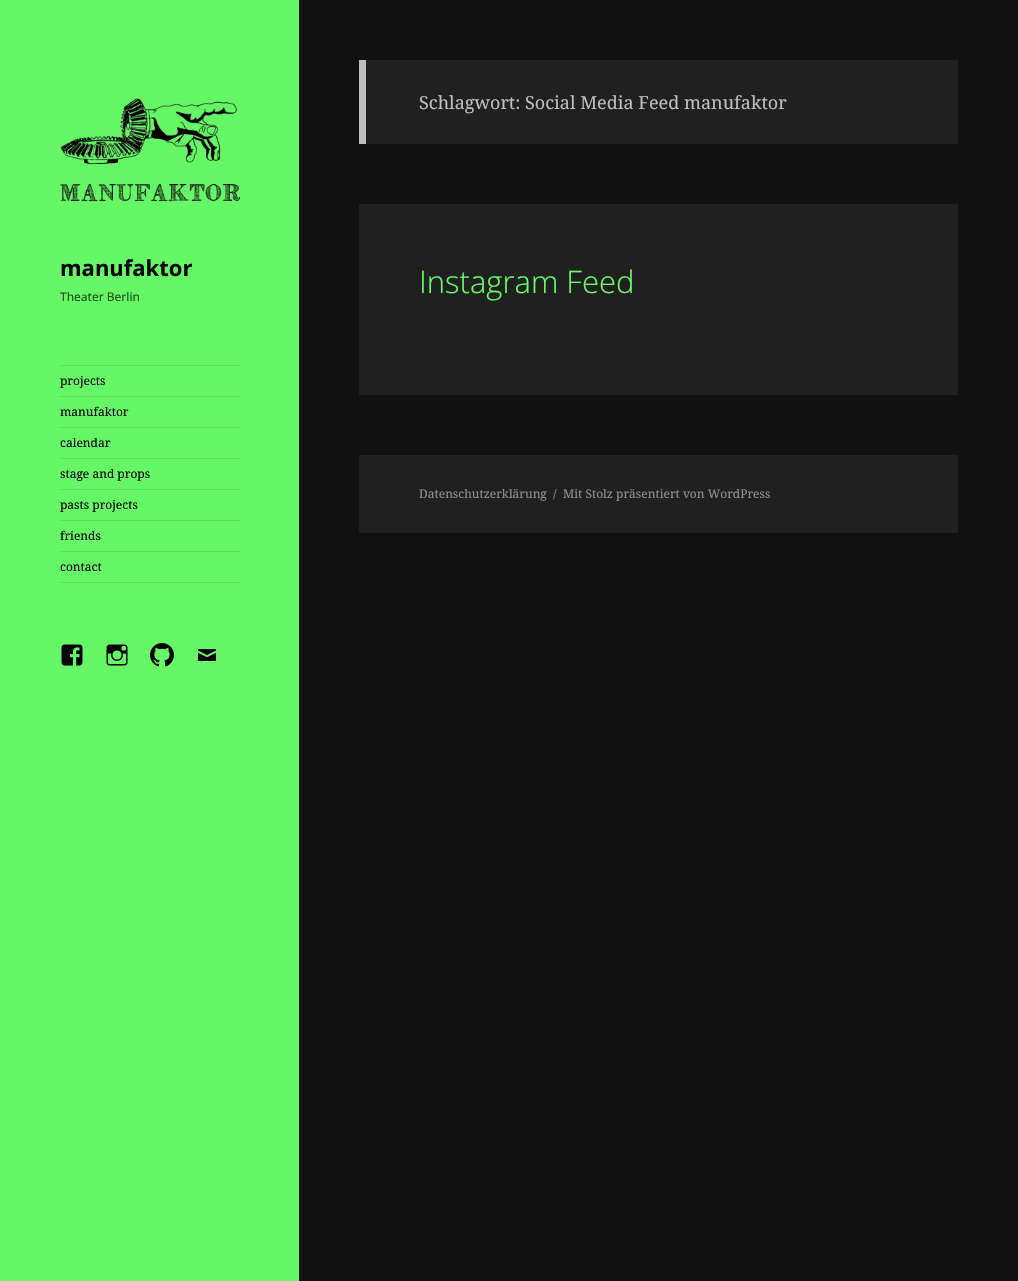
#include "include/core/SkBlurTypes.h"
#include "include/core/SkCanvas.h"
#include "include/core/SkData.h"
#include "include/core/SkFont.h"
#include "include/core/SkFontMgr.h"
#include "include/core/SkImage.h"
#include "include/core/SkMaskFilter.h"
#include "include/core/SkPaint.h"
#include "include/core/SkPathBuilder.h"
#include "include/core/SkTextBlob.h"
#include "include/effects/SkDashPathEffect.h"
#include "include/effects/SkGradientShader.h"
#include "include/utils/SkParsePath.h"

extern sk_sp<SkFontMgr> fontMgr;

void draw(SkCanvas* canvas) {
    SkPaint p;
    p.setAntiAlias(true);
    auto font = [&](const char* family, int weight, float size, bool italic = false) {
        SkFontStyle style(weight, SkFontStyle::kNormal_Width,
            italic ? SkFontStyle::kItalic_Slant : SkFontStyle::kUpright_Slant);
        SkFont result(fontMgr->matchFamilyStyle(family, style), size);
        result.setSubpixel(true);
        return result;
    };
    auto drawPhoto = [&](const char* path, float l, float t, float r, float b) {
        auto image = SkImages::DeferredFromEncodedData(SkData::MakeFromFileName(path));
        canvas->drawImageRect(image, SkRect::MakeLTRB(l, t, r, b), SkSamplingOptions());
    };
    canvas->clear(0xFF111111);
    {
        const struct { float l, t, r, b; SkColor color; } items[] = {
            {0, 0, 299, 1281, 0xFF65F765},
            {366, 60, 958, 144, 0xFF202020},
            {359, 60, 366, 144, 0xFFBEBEBE},
        };
        for (auto [l, t, r, b, color] : items) {
            p.setColor(color);
            canvas->drawRect(SkRect::MakeLTRB(l, t, r, b), p);
        }
    }
    auto font1 = font("Noto Serif", 400, 18);
    canvas->drawString("Schlagwort: Social Media Feed manufaktor", 419, 109, font1, p);
    p.setColor(0xFF202020);
    canvas->drawRect(SkRect::MakeLTRB(359, 204, 958, 395), p);
    auto font2 = font("Open Sans", 300, 31);
    p.setColor(0xFF66FF66);
    canvas->drawString("Instagram Feed", 419, 293, font2, p);
    drawPhoto("media/1.png", 60, 98, 240, 202);
    auto font3 = font("Noto Sans", 700, 22);
    p.setColor(0xFF020202);
    canvas->drawString("manufaktor", 60, 276, font3, p);
    auto font4 = font("Noto Sans", 400, 12);
    p.setColor(0xFF204C20);
    canvas->drawString("Theater Berlin", 60, 301, font4, p);
    p.setColor(0xFF5BDE5B);
    canvas->drawRect(SkRect::MakeLTRB(60, 365, 240, 366), p);
    canvas->drawRect(SkRect::MakeLTRB(60, 582, 240, 583), p);
    auto font5 = font("Noto Serif", 400, 12);
    p.setColor(0xFF020202);
    canvas->drawString("projects", 60, 385, font5, p);
    p.setColor(0xFF5BDE5B);
    canvas->drawRect(SkRect::MakeLTRB(60, 396, 240, 397), p);
    p.setColor(0xFF020202);
    canvas->drawString("manufaktor", 60, 416, font5, p);
    p.setColor(0xFF5BDE5B);
    canvas->drawRect(SkRect::MakeLTRB(60, 427, 240, 428), p);
    p.setColor(0xFF020202);
    canvas->drawString("calendar", 60, 447, font5, p);
    p.setColor(0xFF5BDE5B);
    canvas->drawRect(SkRect::MakeLTRB(60, 458, 240, 459), p);
    p.setColor(0xFF020202);
    canvas->drawString("stage and props", 60, 478, font5, p);
    p.setColor(0xFF5BDE5B);
    canvas->drawRect(SkRect::MakeLTRB(60, 489, 240, 490), p);
    p.setColor(0xFF020202);
    canvas->drawString("pasts projects", 60, 509, font5, p);
    p.setColor(0xFF5BDE5B);
    canvas->drawRect(SkRect::MakeLTRB(60, 520, 240, 521), p);
    p.setColor(0xFF020202);
    canvas->drawString("friends", 60, 540, font5, p);
    p.setColor(0xFF5BDE5B);
    canvas->drawRect(SkRect::MakeLTRB(60, 551, 240, 552), p);
    p.setColor(0xFF020202);
    canvas->drawString("contact", 60, 571, font5, p);
    drawPhoto("media/2.png", 61, 644, 83, 666);
    drawPhoto("media/3.png", 106, 644, 128, 666);
    drawPhoto("media/4.png", 150, 643, 174, 667);
    drawPhoto("media/5.png", 198, 649, 216, 661);
    p.setColor(0xFF202020);
    canvas->drawRect(SkRect::MakeLTRB(359, 455, 958, 533), p);
    p.setColor(0xFF8F8F8F);
    {
        const struct { const char* s; float x, y; } items[] = {
            {"Datenschutzerklärung", 419, 498},
            {"/", 553, 498},
            {"Mit Stolz präsentiert von WordPress", 563, 498},
        };
        for (auto [s, x, y] : items) {
            canvas->drawString(s, x, y, font5, p);
        }
    }
}
